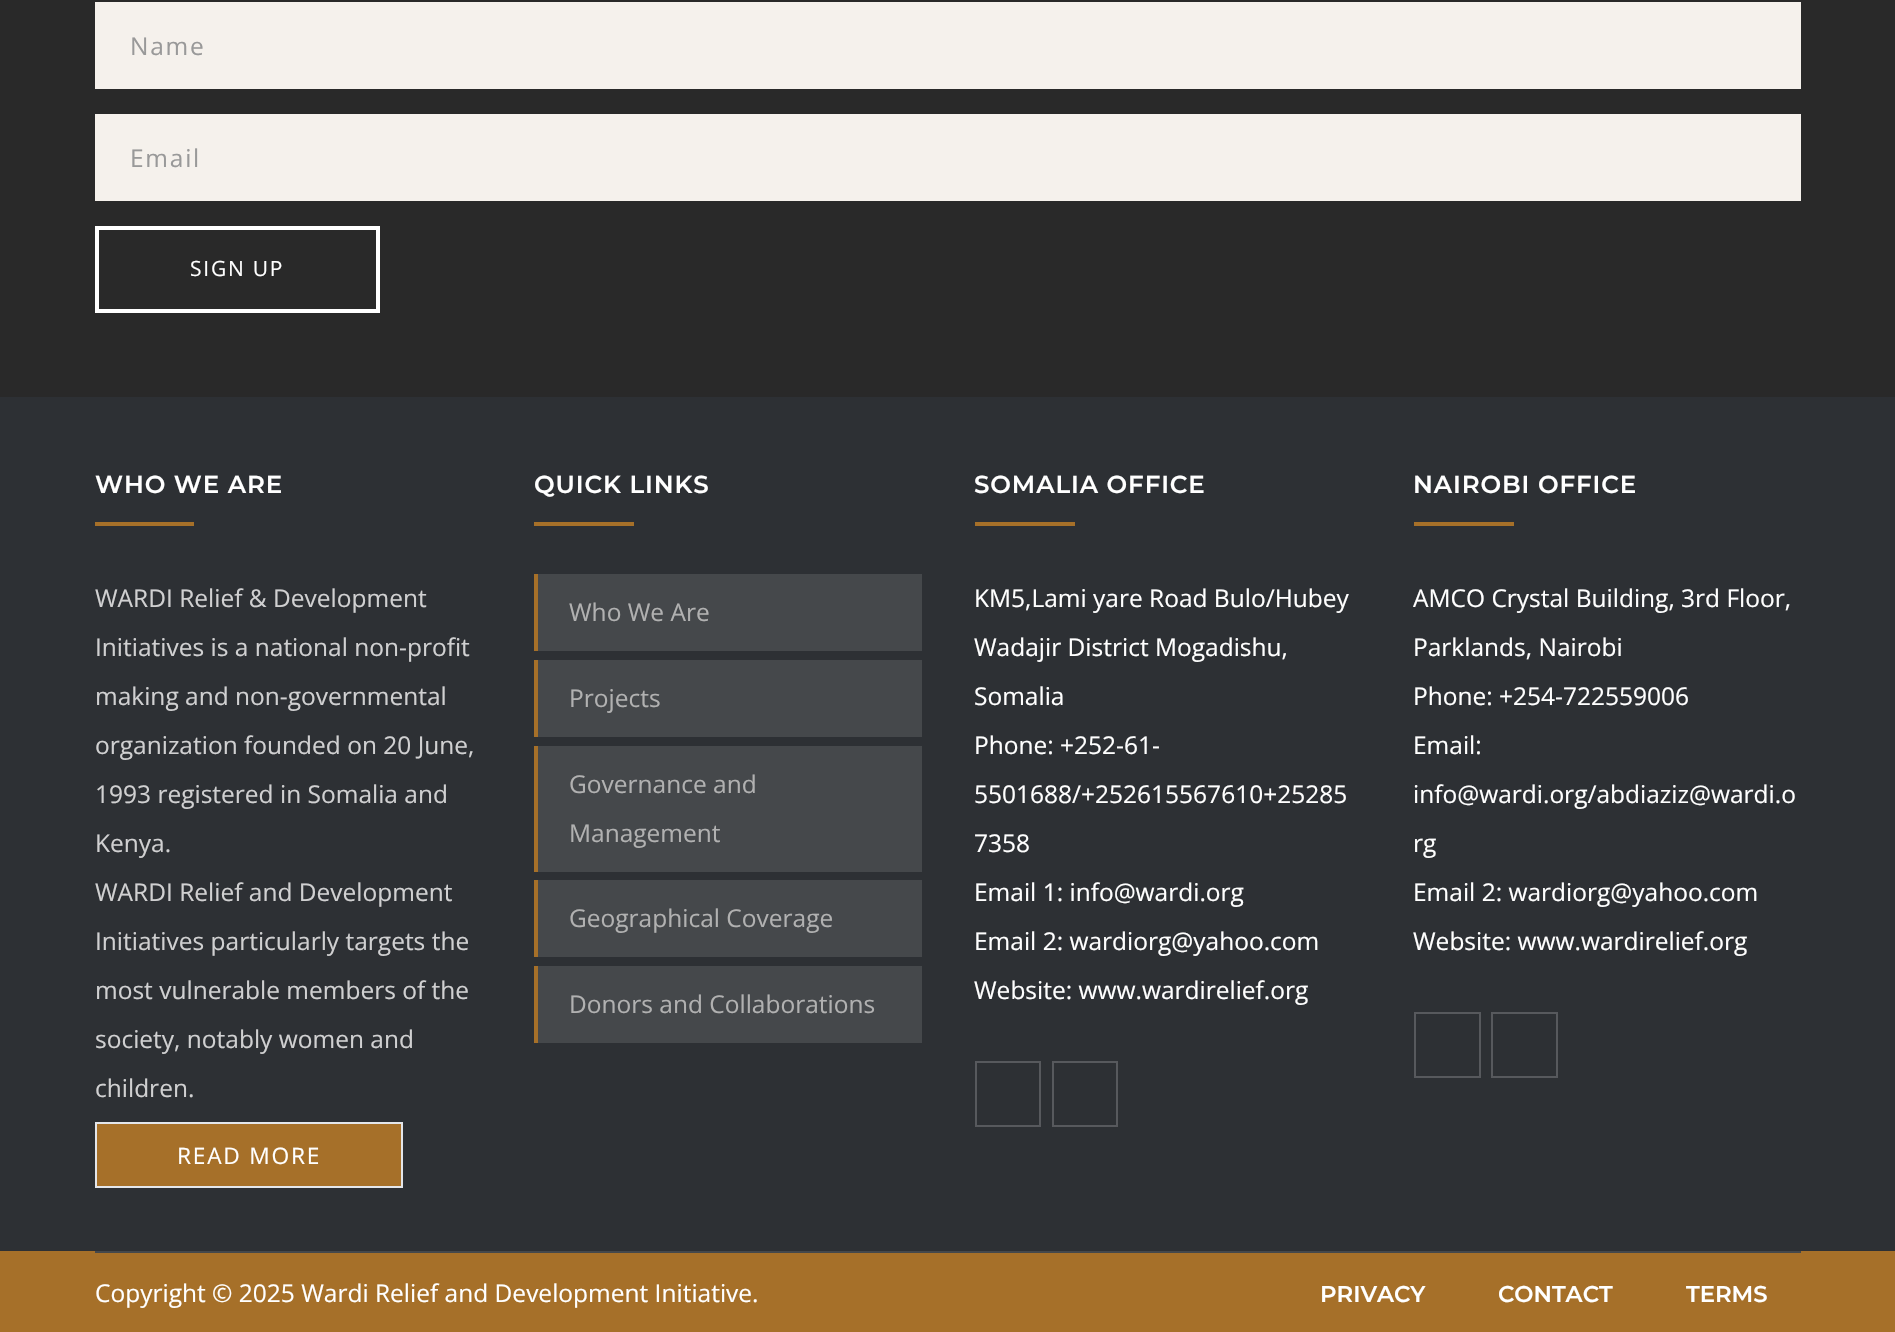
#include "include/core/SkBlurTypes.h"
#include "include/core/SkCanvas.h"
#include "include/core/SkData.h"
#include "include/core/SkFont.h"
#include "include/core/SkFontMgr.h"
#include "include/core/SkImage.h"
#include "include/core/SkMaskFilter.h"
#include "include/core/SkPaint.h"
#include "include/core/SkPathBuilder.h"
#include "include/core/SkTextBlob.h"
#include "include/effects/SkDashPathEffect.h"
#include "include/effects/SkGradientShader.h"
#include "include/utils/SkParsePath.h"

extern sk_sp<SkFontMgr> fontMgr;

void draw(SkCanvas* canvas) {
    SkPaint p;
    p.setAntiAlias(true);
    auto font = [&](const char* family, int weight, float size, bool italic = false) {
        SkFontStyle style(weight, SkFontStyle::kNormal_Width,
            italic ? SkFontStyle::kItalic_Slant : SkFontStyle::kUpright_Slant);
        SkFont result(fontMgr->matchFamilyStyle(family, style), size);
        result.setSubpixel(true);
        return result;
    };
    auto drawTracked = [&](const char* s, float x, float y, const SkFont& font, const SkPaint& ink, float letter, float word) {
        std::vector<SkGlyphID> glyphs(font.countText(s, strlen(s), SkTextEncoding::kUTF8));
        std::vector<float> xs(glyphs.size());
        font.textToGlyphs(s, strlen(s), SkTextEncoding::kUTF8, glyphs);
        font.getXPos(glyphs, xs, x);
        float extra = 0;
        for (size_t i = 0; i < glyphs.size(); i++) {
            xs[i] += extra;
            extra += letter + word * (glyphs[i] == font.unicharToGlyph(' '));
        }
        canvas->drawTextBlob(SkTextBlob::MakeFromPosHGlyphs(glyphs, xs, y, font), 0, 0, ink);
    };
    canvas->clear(0xFF292929);
    p.setColor(0xFFF5F1EC);
    canvas->drawRect(SkRect::MakeLTRB(95, 2, 1801, 89), p);
    auto font1 = font("Open Sans", 400, 24.5f);
    p.setColor(0xFF999999);
    drawTracked("Name", 130, 55, font1, p, 1.75f, 0);
    p.setColor(0xFFF5F1EC);
    canvas->drawRect(SkRect::MakeLTRB(95, 114, 1801, 201), p);
    p.setColor(0xFF999999);
    drawTracked("Email", 130, 167, font1, p, 1.75f, 0);
    p.setStyle(SkPaint::kStroke_Style);
    p.setStrokeWidth(4);
    p.setColor(0xFFFFFFFF);
    canvas->drawRect(SkRect::MakeLTRB(97, 228, 378, 311), p);
    auto font2 = font("Open Sans", 400, 21);
    p.setStyle(SkPaint::kFill_Style);
    drawTracked("SIGN UP", 190, 276, font2, p, 1.75f, 0);
    p.setColor(0xFF2D3034);
    canvas->drawRect(SkRect::MakeLTRB(0, 397, 1895, 1251), p);
    auto font3 = font("Montserrat", 600, 24.5f);
    p.setColor(0xFFFFFFFF);
    drawTracked("WHO WE ARE", 95, 493, font3, p, 0.9f, 0);
    p.setColor(0xFFA67029);
    canvas->drawRect(SkRect::MakeLTRB(95, 522, 194, 526), p);
    p.setColor(0xFFD0D0D1);
    {
        const struct { const char* s; float x, y; } items[] = {
            {"WARDI Relief & Development", 95, 607},
            {"Initiatives is a national non-profit", 95, 656},
            {"making and non-governmental", 95, 705},
            {"organization founded on 20 June,", 95, 754},
            {"1993 registered in Somalia and", 95, 803},
            {"Kenya.", 95, 852},
            {"WARDI Relief and Development", 95, 901},
            {"Initiatives particularly targets the", 95, 950},
            {"most vulnerable members of the", 95, 999},
            {"society, notably women and", 95, 1048},
            {"children.", 95, 1097},
        };
        for (auto [s, x, y] : items) {
            canvas->drawString(s, x, y, font1, p);
        }
    }
    p.setColor(0xFFA67029);
    canvas->drawRect(SkRect::MakeLTRB(96, 1123, 402, 1187), p);
    p.setStyle(SkPaint::kStroke_Style);
    p.setStrokeWidth(2);
    p.setColor(0xFFE4E6EA);
    canvas->drawRect(SkRect::MakeLTRB(96, 1123, 402, 1187), p);
    auto font4 = font("Open Sans", 400, 22.75f);
    p.setStyle(SkPaint::kFill_Style);
    p.setColor(0xFFFFFFFF);
    drawTracked("READ MORE", 177, 1164, font4, p, 1.75f, 0);
    drawTracked("QUICK LINKS", 534, 493, font3, p, 0.9f, 0);
    {
        const struct { float l, t, r, b; SkColor color; } items[] = {
            {534, 522, 634, 526, 0xFFA67029},
            {538, 574, 922, 651, 0xFF45484B},
            {534, 574, 538, 651, 0xFFA67029},
        };
        for (auto [l, t, r, b, color] : items) {
            p.setColor(color);
            canvas->drawRect(SkRect::MakeLTRB(l, t, r, b), p);
        }
    }
    p.setColor(0xFFB1B1B1);
    canvas->drawString("Who We Are", 569, 621, font1, p);
    p.setColor(0xFF45484B);
    canvas->drawRect(SkRect::MakeLTRB(538, 660, 922, 737), p);
    p.setColor(0xFFA67029);
    canvas->drawRect(SkRect::MakeLTRB(534, 660, 538, 737), p);
    p.setColor(0xFFB1B1B1);
    canvas->drawString("Projects", 569, 707, font1, p);
    p.setColor(0xFF45484B);
    canvas->drawRect(SkRect::MakeLTRB(538, 746, 922, 872), p);
    p.setColor(0xFFA67029);
    canvas->drawRect(SkRect::MakeLTRB(534, 746, 538, 872), p);
    p.setColor(0xFFB1B1B1);
    canvas->drawString("Governance and", 569, 793, font1, p);
    canvas->drawString("Management", 569, 842, font1, p);
    p.setColor(0xFF45484B);
    canvas->drawRect(SkRect::MakeLTRB(538, 880, 922, 957), p);
    p.setColor(0xFFA67029);
    canvas->drawRect(SkRect::MakeLTRB(534, 880, 538, 957), p);
    p.setColor(0xFFB1B1B1);
    canvas->drawString("Geographical Coverage", 569, 927, font1, p);
    p.setColor(0xFF45484B);
    canvas->drawRect(SkRect::MakeLTRB(538, 966, 922, 1043), p);
    p.setColor(0xFFA67029);
    canvas->drawRect(SkRect::MakeLTRB(534, 966, 538, 1043), p);
    p.setColor(0xFFB1B1B1);
    canvas->drawString("Donors and Collaborations", 569, 1013, font1, p);
    p.setColor(0xFFFFFFFF);
    drawTracked("SOMALIA OFFICE", 974, 493, font3, p, 0.9f, 0);
    p.setColor(0xFFA67029);
    canvas->drawRect(SkRect::MakeLTRB(975, 522, 1075, 526), p);
    p.setColor(0xFFFFFFFF);
    {
        const struct { const char* s; float x, y; } items[] = {
            {"KM5,Lami yare Road Bulo/Hubey", 974, 607},
            {"Wadajir District Mogadishu,", 974, 656},
            {"Somalia", 974, 705},
            {"Phone: +252-61-", 974, 754},
            {"5501688/+252615567610+25285", 974, 803},
            {"7358", 974, 852},
            {"Email 1: info@wardi.org", 974, 901},
            {"Email 2: wardiorg@yahoo.com", 974, 950},
            {"Website: www.wardirelief.org", 974, 999},
        };
        for (auto [s, x, y] : items) {
            canvas->drawString(s, x, y, font1, p);
        }
    }
    p.setStyle(SkPaint::kStroke_Style);
    p.setColor(0xFF57595D);
    canvas->drawRect(SkRect::MakeLTRB(976, 1062, 1040, 1126), p);
    canvas->drawRect(SkRect::MakeLTRB(1053, 1062, 1117, 1126), p);
    p.setStyle(SkPaint::kFill_Style);
    p.setColor(0xFFFFFFFF);
    drawTracked("NAIROBI OFFICE", 1413, 493, font3, p, 0.9f, 0);
    p.setColor(0xFFA67029);
    canvas->drawRect(SkRect::MakeLTRB(1414, 522, 1514, 526), p);
    p.setColor(0xFFFFFFFF);
    {
        const struct { const char* s; float x, y; } items[] = {
            {"AMCO Crystal Building, 3rd Floor,", 1413, 607},
            {"Parklands, Nairobi", 1413, 656},
            {"Phone: +254-722559006", 1413, 705},
            {"Email:", 1413, 754},
            {"info@wardi.org/abdiaziz@wardi.o", 1413, 803},
            {"rg", 1413, 852},
            {"Email 2: wardiorg@yahoo.com", 1413, 901},
            {"Website: www.wardirelief.org", 1413, 950},
        };
        for (auto [s, x, y] : items) {
            canvas->drawString(s, x, y, font1, p);
        }
    }
    p.setStyle(SkPaint::kStroke_Style);
    p.setColor(0xFF57595D);
    canvas->drawRect(SkRect::MakeLTRB(1415, 1013, 1480, 1077), p);
    canvas->drawRect(SkRect::MakeLTRB(1492, 1013, 1557, 1077), p);
    p.setStyle(SkPaint::kFill_Style);
    p.setColor(0xFFA67029);
    canvas->drawRect(SkRect::MakeLTRB(0, 1251, 1895, 1332), p);
    p.setColor(0xFF45484B);
    canvas->drawRect(SkRect::MakeLTRB(95, 1251, 1801, 1253), p);
    p.setColor(0xFFFFFFFF);
    canvas->drawString("Copyright © 2025 Wardi Relief and Development Initiative.", 95, 1302, font1, p);
    auto font5 = font("Montserrat", 600, 22.75f);
    {
        const struct { const char* s; float x, y; } items[] = {
            {"PRIVACY", 1320, 1302},
            {"CONTACT", 1498, 1302},
            {"TERMS", 1686, 1302},
        };
        for (auto [s, x, y] : items) {
            canvas->drawString(s, x, y, font5, p);
        }
    }
}
